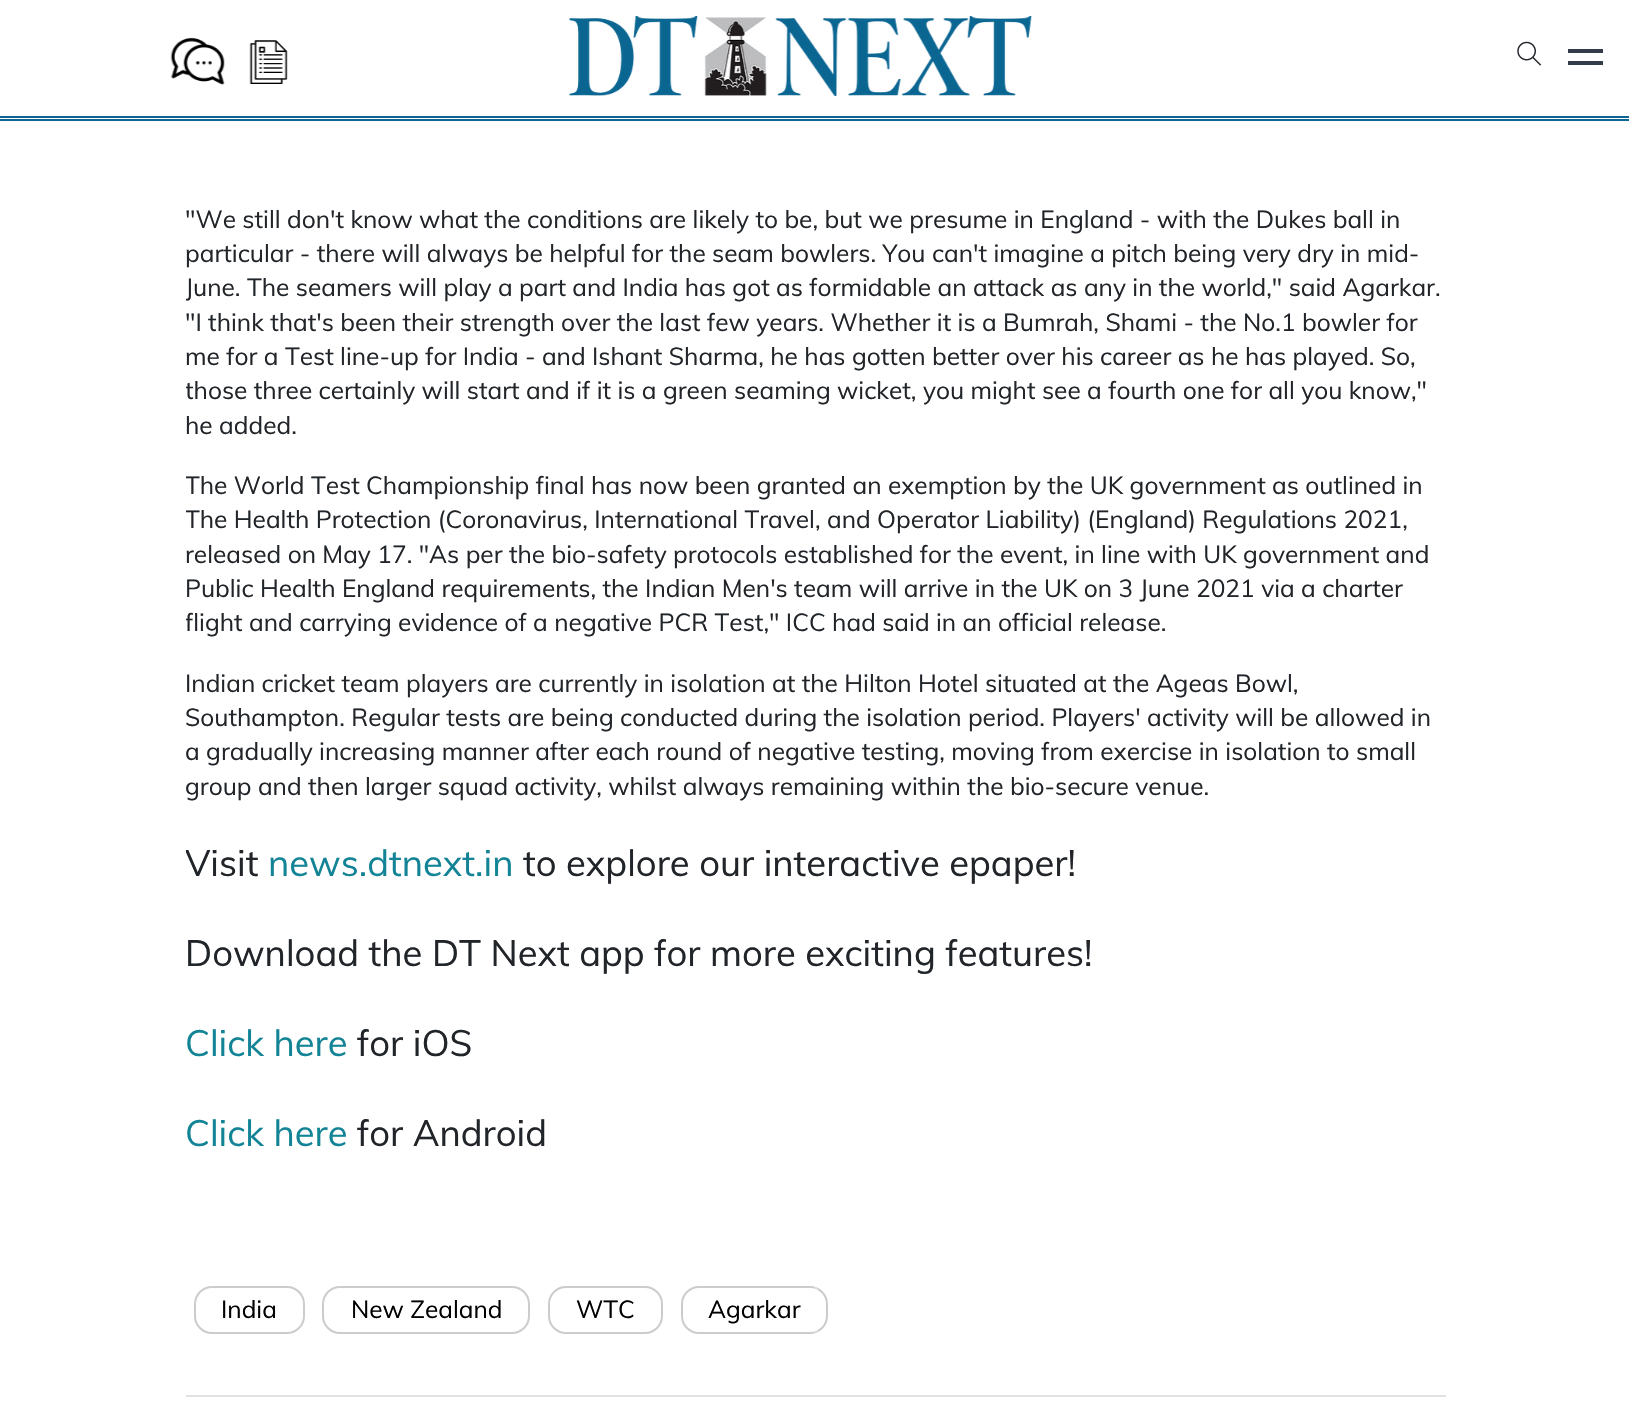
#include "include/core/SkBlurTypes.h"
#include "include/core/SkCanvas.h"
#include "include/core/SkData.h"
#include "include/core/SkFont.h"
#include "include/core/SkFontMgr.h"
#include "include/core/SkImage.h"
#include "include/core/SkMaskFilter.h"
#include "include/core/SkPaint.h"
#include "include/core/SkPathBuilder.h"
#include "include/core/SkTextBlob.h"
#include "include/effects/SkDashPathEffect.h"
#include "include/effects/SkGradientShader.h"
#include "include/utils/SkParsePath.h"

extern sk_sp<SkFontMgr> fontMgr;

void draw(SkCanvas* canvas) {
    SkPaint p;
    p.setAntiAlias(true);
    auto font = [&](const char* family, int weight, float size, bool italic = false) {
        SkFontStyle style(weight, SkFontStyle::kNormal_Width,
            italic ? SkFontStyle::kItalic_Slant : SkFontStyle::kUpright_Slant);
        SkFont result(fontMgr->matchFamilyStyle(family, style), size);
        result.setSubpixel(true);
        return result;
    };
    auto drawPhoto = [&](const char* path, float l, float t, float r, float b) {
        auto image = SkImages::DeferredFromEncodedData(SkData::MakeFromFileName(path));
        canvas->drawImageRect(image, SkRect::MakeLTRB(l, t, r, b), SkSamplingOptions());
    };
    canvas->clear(0xFFFFFFFF);
    drawPhoto("media/1.png", 170, 37, 225, 85);
    drawPhoto("media/2.png", 249, 40, 288, 84);
    drawPhoto("media/3.png", 569, 16, 1032, 97);
    drawPhoto("media/4.png", 1517, 41, 1542, 66);
    {
        const struct { float l, t, r, b; SkColor color; } items[] = {
            {1568, 61, 1603, 65, 0xFF353C49},
            {1568, 49, 1603, 53, 0xFF353C49},
            {0, 116, 1629, 118, 0xFF0B6691},
            {0, 119, 1629, 121, 0xFF0B6691},
        };
        for (auto [l, t, r, b, color] : items) {
            p.setColor(color);
            canvas->drawRect(SkRect::MakeLTRB(l, t, r, b), p);
        }
    }
    auto font1 = font("Muli", 400, 24.5f);
    p.setColor(0xFF212529);
    canvas->drawString("\"We still don't know what the conditions are likely to be, but we presume in England - with the Dukes ball in", 185, 228, font1, p);
    canvas->drawString("particular - there will always be helpful for the seam bowlers. You can't imagine a pitch being very dry in mid-", 185, 262, font1, p);
    canvas->save();
    canvas->clipRect(SkRect::MakeLTRB(186, 0, 1446, 1190));
    canvas->drawString("June. The seamers will play a part and India has got as formidable an attack as any in the world,\" said Agarkar.", 185, 296, font1, p);
    canvas->restore();
    canvas->drawString("\"I think that's been their strength over the last few years. Whether it is a Bumrah, Shami - the No.1 bowler for", 185, 331, font1, p);
    canvas->drawString("me for a Test line-up for India - and Ishant Sharma, he has gotten better over his career as he has played. So,", 185, 365, font1, p);
    canvas->save();
    canvas->clipRect(SkRect::MakeLTRB(186, 0, 1446, 1190));
    canvas->drawString("those three certainly will start and if it is a green seaming wicket, you might see a fourth one for all you know,\"", 185, 399, font1, p);
    canvas->restore();
    canvas->drawString("he added.", 185, 434, font1, p);
    canvas->save();
    canvas->clipRect(SkRect::MakeLTRB(186, 0, 1446, 1190));
    canvas->drawString("The World Test Championship final has now been granted an exemption by the UK government as outlined in", 185, 494, font1, p);
    canvas->drawString("The Health Protection (Coronavirus, International Travel, and Operator Liability) (England) Regulations 2021,", 185, 528, font1, p);
    canvas->restore();
    canvas->drawString("released on May 17. \"As per the bio-safety protocols established for the event, in line with UK government and", 185, 563, font1, p);
    canvas->drawString("Public Health England requirements, the Indian Men's team will arrive in the UK on 3 June 2021 via a charter", 185, 597, font1, p);
    canvas->save();
    canvas->clipRect(SkRect::MakeLTRB(186, 0, 1446, 1190));
    canvas->drawString("flight and carrying evidence of a negative PCR Test,\" ICC had said in an official release.", 185, 631, font1, p);
    canvas->restore();
    canvas->drawString("Indian cricket team players are currently in isolation at the Hilton Hotel situated at the Ageas Bowl,", 185, 692, font1, p);
    canvas->drawString("Southampton. Regular tests are being conducted during the isolation period. Players' activity will be allowed in", 185, 726, font1, p);
    canvas->save();
    canvas->clipRect(SkRect::MakeLTRB(186, 0, 1446, 1190));
    canvas->drawString("a gradually increasing manner after each round of negative testing, moving from exercise in isolation to small", 185, 760, font1, p);
    canvas->drawString("group and then larger squad activity, whilst always remaining within the bio-secure venue.", 185, 795, font1, p);
    auto font2 = font("Muli", 400, 36.4f);
    canvas->drawString("Visit", 185, 876, font2, p);
    canvas->restore();
    p.setColor(0xFF138496);
    canvas->drawString("news.dtnext.in", 268, 876, font2, p);
    p.setColor(0xFF212529);
    canvas->drawString("to explore our interactive epaper!", 523, 876, font2, p);
    canvas->drawString("Download the DT Next app for more exciting features!", 185, 966, font2, p);
    p.setColor(0xFF138496);
    canvas->drawString("Click here", 185, 1056, font2, p);
    p.setColor(0xFF212529);
    canvas->drawString("for iOS", 357, 1056, font2, p);
    p.setColor(0xFF138496);
    canvas->drawString("Click here", 185, 1146, font2, p);
    p.setColor(0xFF212529);
    canvas->drawString("for Android", 357, 1146, font2, p);
    p.setStyle(SkPaint::kStroke_Style);
    p.setStrokeWidth(2);
    p.setColor(0xFFCCCCCC);
    canvas->drawRoundRect(SkRect::MakeLTRB(195, 1287, 304, 1333), 17, 17, p);
    p.setStyle(SkPaint::kFill_Style);
    p.setColor(0xFF000000);
    canvas->drawString("India", 221, 1318, font1, p);
    p.setStyle(SkPaint::kStroke_Style);
    p.setColor(0xFFCCCCCC);
    canvas->drawRoundRect(SkRect::MakeLTRB(323, 1287, 529, 1333), 17, 17, p);
    p.setStyle(SkPaint::kFill_Style);
    p.setColor(0xFF000000);
    canvas->drawString("New Zealand", 351, 1318, font1, p);
    p.setStyle(SkPaint::kStroke_Style);
    p.setColor(0xFFCCCCCC);
    canvas->drawRoundRect(SkRect::MakeLTRB(549, 1287, 662, 1333), 17, 17, p);
    p.setStyle(SkPaint::kFill_Style);
    p.setColor(0xFF000000);
    canvas->drawString("WTC", 576, 1318, font1, p);
    p.setStyle(SkPaint::kStroke_Style);
    p.setColor(0xFFCCCCCC);
    canvas->drawRoundRect(SkRect::MakeLTRB(682, 1287, 827, 1333), 17, 17, p);
    p.setStyle(SkPaint::kFill_Style);
    p.setColor(0xFF000000);
    canvas->drawString("Agarkar", 708, 1318, font1, p);
    p.setColor(0xFFE1E1E1);
    canvas->drawRect(SkRect::MakeLTRB(186, 1395, 1446, 1397), p);
    p.setColor(0x4DFFFFFF);
    canvas->drawRect(SkRect::MakeLTRB(814, 1286, 818, 1334), p);
}
